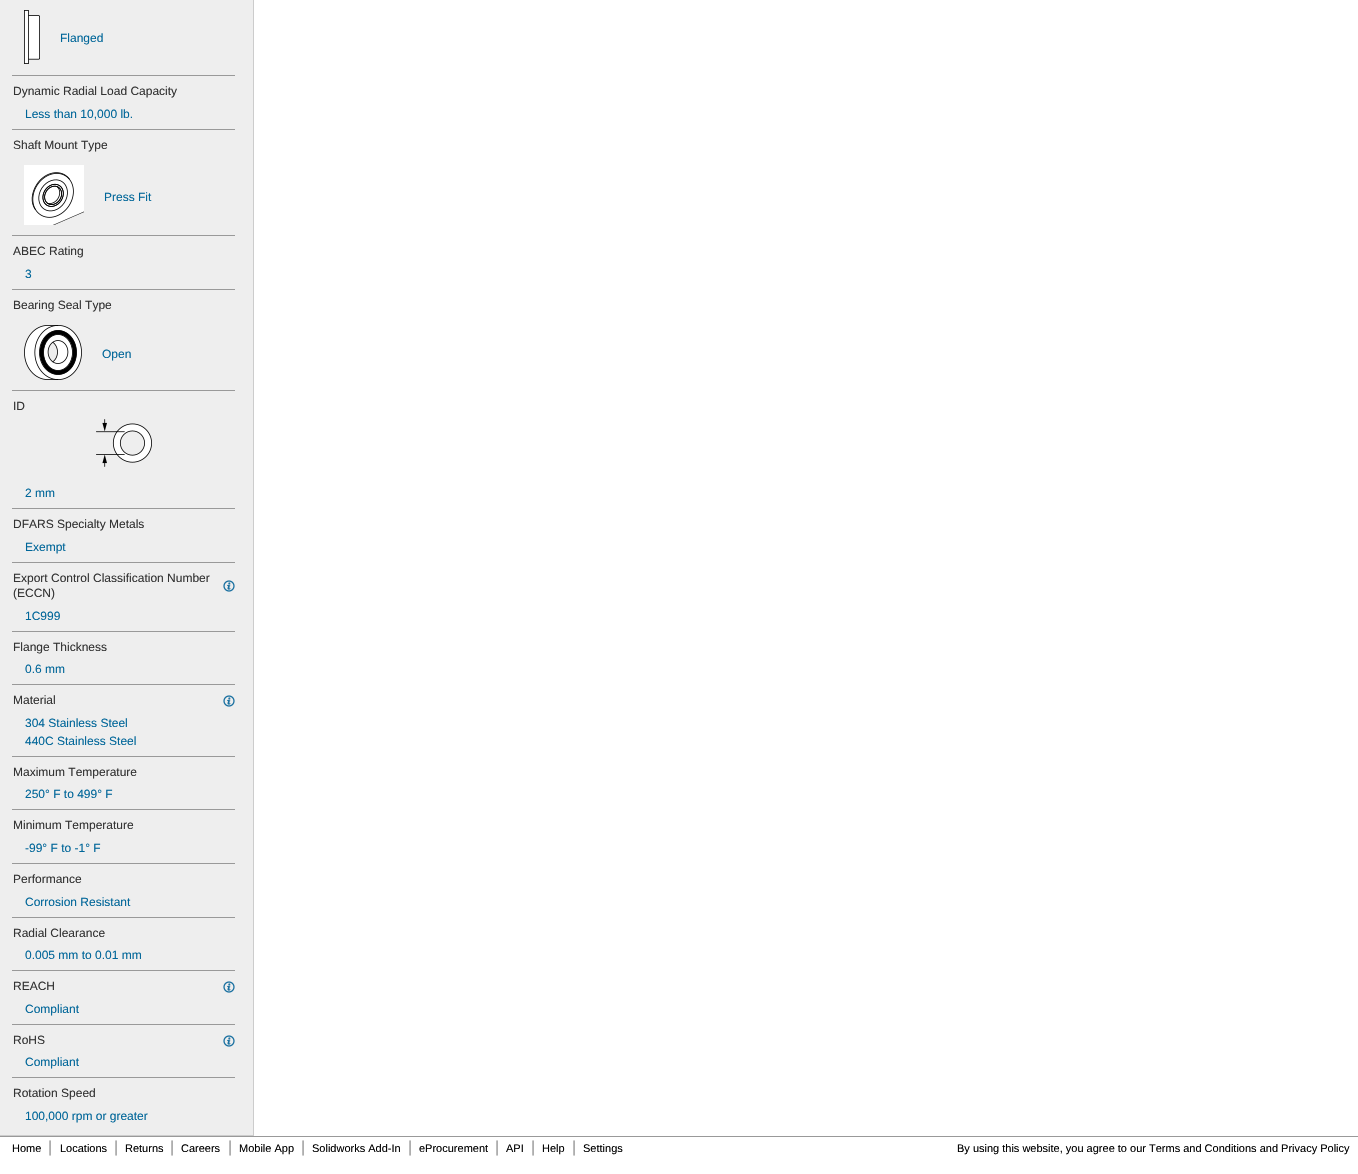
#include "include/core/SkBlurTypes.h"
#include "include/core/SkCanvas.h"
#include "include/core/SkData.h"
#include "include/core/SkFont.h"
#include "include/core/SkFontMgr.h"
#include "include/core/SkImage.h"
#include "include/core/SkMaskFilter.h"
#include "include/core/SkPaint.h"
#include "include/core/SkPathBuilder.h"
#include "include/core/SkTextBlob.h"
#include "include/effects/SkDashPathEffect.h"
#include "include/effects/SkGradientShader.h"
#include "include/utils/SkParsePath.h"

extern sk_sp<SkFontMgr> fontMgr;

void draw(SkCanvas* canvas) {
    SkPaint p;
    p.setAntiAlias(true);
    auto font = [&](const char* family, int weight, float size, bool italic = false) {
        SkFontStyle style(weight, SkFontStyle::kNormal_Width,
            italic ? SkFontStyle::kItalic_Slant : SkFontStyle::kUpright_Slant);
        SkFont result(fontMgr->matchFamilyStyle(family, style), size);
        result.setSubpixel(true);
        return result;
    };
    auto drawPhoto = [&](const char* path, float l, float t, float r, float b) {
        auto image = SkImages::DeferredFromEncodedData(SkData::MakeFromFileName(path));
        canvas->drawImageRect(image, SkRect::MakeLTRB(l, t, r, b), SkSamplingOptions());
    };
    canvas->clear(0xFFFFFFFF);
    {
        const struct { float l, t, r, b; SkColor color; } items[] = {
            {0, 0, 253, 1135, 0xFFEEEEEE},
            {253, 0, 254, 1136, 0xFFCCCCCC},
            {0, 1135, 254, 1136, 0xFFCCCCCC},
        };
        for (auto [l, t, r, b, color] : items) {
            p.setColor(color);
            canvas->drawRect(SkRect::MakeLTRB(l, t, r, b), p);
        }
    }
    drawPhoto("media/1.png", 24, 10, 40, 64);
    auto font1 = font("Liberation Sans", 400, 12);
    p.setColor(0xFF006699);
    canvas->drawString("Flanged", 60, 42, font1, p);
    p.setColor(0xFF999999);
    canvas->drawRect(SkRect::MakeLTRB(12, 75, 235, 76), p);
    p.setColor(0xFF333333);
    canvas->drawString("Dynamic Radial Load Capacity", 13, 95, font1, p);
    p.setColor(0xFF006699);
    canvas->drawString("Less than 10,000 lb.", 25, 118, font1, p);
    p.setColor(0xFF999999);
    canvas->drawRect(SkRect::MakeLTRB(12, 129, 235, 130), p);
    p.setColor(0xFF333333);
    canvas->drawString("Shaft Mount Type", 13, 149, font1, p);
    drawPhoto("media/2.png", 24, 165, 84, 225);
    p.setColor(0xFF006699);
    canvas->drawString("Press Fit", 104, 201, font1, p);
    p.setColor(0xFF999999);
    canvas->drawRect(SkRect::MakeLTRB(12, 235, 235, 236), p);
    p.setColor(0xFF333333);
    canvas->drawString("ABEC Rating", 13, 255, font1, p);
    p.setColor(0xFF006699);
    canvas->drawString("3", 25, 278, font1, p);
    p.setColor(0xFF999999);
    canvas->drawRect(SkRect::MakeLTRB(12, 289, 235, 290), p);
    p.setColor(0xFF333333);
    canvas->drawString("Bearing Seal Type", 13, 309, font1, p);
    drawPhoto("media/3.png", 24, 325, 82, 380);
    p.setColor(0xFF006699);
    canvas->drawString("Open", 102, 358, font1, p);
    p.setColor(0xFF999999);
    canvas->drawRect(SkRect::MakeLTRB(12, 390, 235, 391), p);
    p.setColor(0xFF333333);
    canvas->drawString("ID", 13, 410, font1, p);
    drawPhoto("media/4.png", 96, 419, 152, 467);
    p.setColor(0xFF006699);
    canvas->drawString("2 mm", 25, 497, font1, p);
    p.setColor(0xFF999999);
    canvas->drawRect(SkRect::MakeLTRB(12, 508, 235, 509), p);
    p.setColor(0xFF333333);
    canvas->drawString("DFARS Specialty Metals", 13, 528, font1, p);
    p.setColor(0xFF006699);
    canvas->drawString("Exempt", 25, 551, font1, p);
    p.setColor(0xFF999999);
    canvas->drawRect(SkRect::MakeLTRB(12, 562, 235, 563), p);
    p.setColor(0xFF333333);
    canvas->drawString("Export Control Classification Number", 13, 582, font1, p);
    canvas->drawString("(ECCN)", 13, 597, font1, p);
    drawPhoto("media/5.png", 223, 580, 235, 592);
    p.setColor(0xFF006699);
    canvas->drawString("1C999", 25, 620, font1, p);
    p.setColor(0xFF999999);
    canvas->drawRect(SkRect::MakeLTRB(12, 631, 235, 632), p);
    p.setColor(0xFF333333);
    canvas->drawString("Flange Thickness", 13, 651, font1, p);
    p.setColor(0xFF006699);
    canvas->drawString("0.6 mm", 25, 673, font1, p);
    p.setColor(0xFF999999);
    canvas->drawRect(SkRect::MakeLTRB(12, 684, 235, 685), p);
    p.setColor(0xFF333333);
    canvas->drawString("Material", 13, 704, font1, p);
    drawPhoto("media/5.png", 223, 695, 235, 707);
    p.setColor(0xFF006699);
    canvas->drawString("304 Stainless Steel", 25, 727, font1, p);
    canvas->drawString("440C Stainless Steel", 25, 745, font1, p);
    p.setColor(0xFF999999);
    canvas->drawRect(SkRect::MakeLTRB(12, 756, 235, 757), p);
    p.setColor(0xFF333333);
    canvas->drawString("Maximum Temperature", 13, 776, font1, p);
    p.setColor(0xFF006699);
    canvas->drawString("250° F to 499° F", 25, 798, font1, p);
    p.setColor(0xFF999999);
    canvas->drawRect(SkRect::MakeLTRB(12, 809, 235, 810), p);
    p.setColor(0xFF333333);
    canvas->drawString("Minimum Temperature", 13, 829, font1, p);
    p.setColor(0xFF006699);
    canvas->drawString("-99° F to -1° F", 25, 852, font1, p);
    p.setColor(0xFF999999);
    canvas->drawRect(SkRect::MakeLTRB(12, 863, 235, 864), p);
    p.setColor(0xFF333333);
    canvas->drawString("Performance", 13, 883, font1, p);
    p.setColor(0xFF006699);
    canvas->drawString("Corrosion Resistant", 25, 906, font1, p);
    p.setColor(0xFF999999);
    canvas->drawRect(SkRect::MakeLTRB(12, 917, 235, 918), p);
    p.setColor(0xFF333333);
    canvas->drawString("Radial Clearance", 13, 937, font1, p);
    p.setColor(0xFF006699);
    canvas->drawString("0.005 mm to 0.01 mm", 25, 959, font1, p);
    p.setColor(0xFF999999);
    canvas->drawRect(SkRect::MakeLTRB(12, 970, 235, 971), p);
    p.setColor(0xFF333333);
    canvas->drawString("REACH", 13, 990, font1, p);
    drawPhoto("media/5.png", 223, 981, 235, 993);
    p.setColor(0xFF006699);
    canvas->drawString("Compliant", 25, 1013, font1, p);
    p.setColor(0xFF999999);
    canvas->drawRect(SkRect::MakeLTRB(12, 1024, 235, 1025), p);
    p.setColor(0xFF333333);
    canvas->drawString("RoHS", 13, 1044, font1, p);
    drawPhoto("media/5.png", 223, 1035, 235, 1047);
    p.setColor(0xFF006699);
    canvas->drawString("Compliant", 25, 1066, font1, p);
    p.setColor(0xFF999999);
    canvas->drawRect(SkRect::MakeLTRB(12, 1077, 235, 1078), p);
    p.setColor(0xFF333333);
    canvas->drawString("Rotation Speed", 13, 1097, font1, p);
    p.setColor(0xFF006699);
    canvas->drawString("100,000 rpm or greater", 25, 1120, font1, p);
    p.setColor(0xFF999999);
    canvas->drawRect(SkRect::MakeLTRB(0, 1136, 1358, 1137), p);
    auto font2 = font("Liberation Sans", 400, 11);
    p.setColor(0xFF000000);
    canvas->drawString("Home", 12, 1152, font2, p);
    auto font3 = font("Liberation Sans", 400, 16);
    p.setColor(0xFF999999);
    canvas->drawString("|", 48, 1152, font3, p);
    p.setColor(0xFF000000);
    canvas->drawString("Locations", 60, 1152, font2, p);
    p.setColor(0xFF999999);
    canvas->drawString("|", 114, 1152, font3, p);
    p.setColor(0xFF000000);
    canvas->drawString("Returns", 125, 1152, font2, p);
    p.setColor(0xFF999999);
    canvas->drawString("|", 170, 1152, font3, p);
    p.setColor(0xFF000000);
    canvas->drawString("Careers", 181, 1152, font2, p);
    p.setColor(0xFF999999);
    canvas->drawString("|", 228, 1152, font3, p);
    p.setColor(0xFF000000);
    canvas->drawString("Mobile App", 239, 1152, font2, p);
    p.setColor(0xFF999999);
    canvas->drawString("|", 301, 1152, font3, p);
    p.setColor(0xFF000000);
    canvas->drawString("Solidworks Add-In", 312, 1152, font2, p);
    p.setColor(0xFF999999);
    canvas->drawString("|", 408, 1152, font3, p);
    p.setColor(0xFF000000);
    canvas->drawString("eProcurement", 419, 1152, font2, p);
    p.setColor(0xFF999999);
    canvas->drawString("|", 495, 1152, font3, p);
    p.setColor(0xFF000000);
    canvas->drawString("API", 506, 1152, font2, p);
    p.setColor(0xFF999999);
    canvas->drawString("|", 531, 1152, font3, p);
    p.setColor(0xFF000000);
    canvas->drawString("Help", 542, 1152, font2, p);
    p.setColor(0xFF999999);
    canvas->drawString("|", 572, 1152, font3, p);
    p.setColor(0xFF000000);
    canvas->drawString("Settings", 583, 1152, font2, p);
    canvas->drawString("By using this website, you agree to our Terms and Conditions and Privacy Policy", 957, 1152, font2, p);
}
